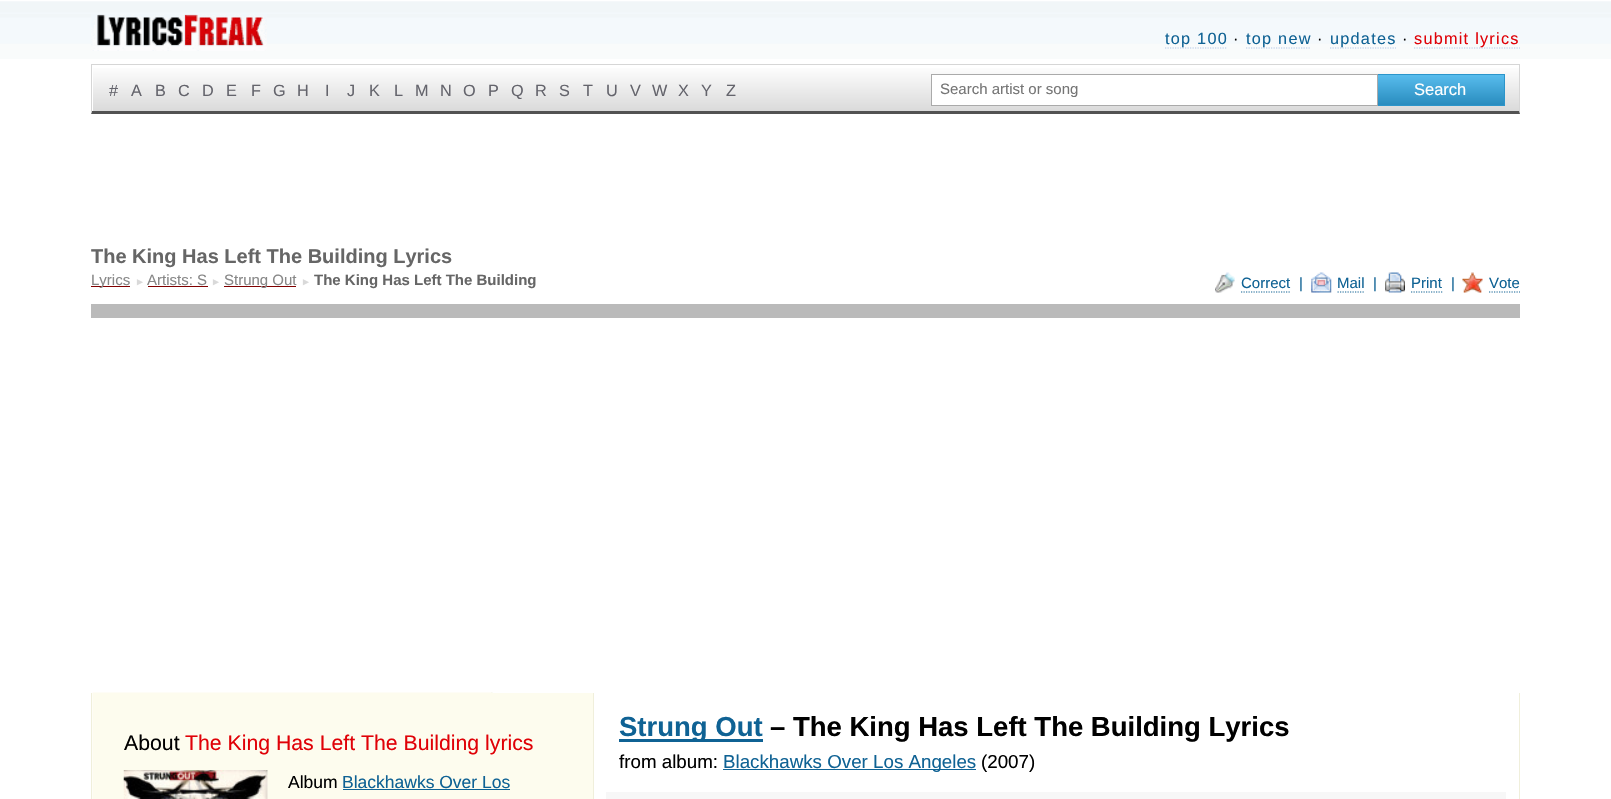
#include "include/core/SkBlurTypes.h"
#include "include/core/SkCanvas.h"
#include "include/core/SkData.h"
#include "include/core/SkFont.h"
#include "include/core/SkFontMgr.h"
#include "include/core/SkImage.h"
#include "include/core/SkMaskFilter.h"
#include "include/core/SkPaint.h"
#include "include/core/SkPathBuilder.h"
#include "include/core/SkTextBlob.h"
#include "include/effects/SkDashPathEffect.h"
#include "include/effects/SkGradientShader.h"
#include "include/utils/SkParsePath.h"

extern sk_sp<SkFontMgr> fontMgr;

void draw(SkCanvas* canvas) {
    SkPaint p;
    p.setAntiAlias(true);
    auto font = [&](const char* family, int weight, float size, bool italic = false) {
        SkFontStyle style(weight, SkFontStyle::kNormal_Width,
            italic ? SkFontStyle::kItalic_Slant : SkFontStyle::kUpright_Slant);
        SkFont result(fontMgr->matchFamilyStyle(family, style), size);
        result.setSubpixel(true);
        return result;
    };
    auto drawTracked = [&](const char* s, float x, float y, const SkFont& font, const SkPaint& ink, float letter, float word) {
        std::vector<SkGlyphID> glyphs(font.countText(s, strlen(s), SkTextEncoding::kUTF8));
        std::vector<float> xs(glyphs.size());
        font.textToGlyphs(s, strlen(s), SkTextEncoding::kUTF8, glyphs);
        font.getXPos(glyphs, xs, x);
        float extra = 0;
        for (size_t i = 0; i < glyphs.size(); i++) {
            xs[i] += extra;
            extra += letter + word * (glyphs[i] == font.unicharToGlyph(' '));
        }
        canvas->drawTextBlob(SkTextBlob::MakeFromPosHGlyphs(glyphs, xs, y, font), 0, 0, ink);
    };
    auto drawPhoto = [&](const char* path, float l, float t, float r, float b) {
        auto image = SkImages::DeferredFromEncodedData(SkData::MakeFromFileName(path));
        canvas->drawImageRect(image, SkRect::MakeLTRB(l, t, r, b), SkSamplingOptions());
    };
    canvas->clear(0xFFFFFFFF);
    drawPhoto("media/1.png", 0, 1, 1611, 59);
    drawPhoto("media/2.png", 91, 14, 267, 51);
    p.setStyle(SkPaint::kStroke_Style);
    p.setStrokeWidth(1.2f);
    p.setColor(0xFFB2C7E7);
    p.setPathEffect(SkDashPathEffect::Make({{1.25f, 1.25f}}, 0));
    canvas->drawPath(SkPathBuilder().moveTo(1165, 48).lineTo(1227.5f, 48).detach(), p);
    p.setPathEffect(nullptr);
    auto font1 = font("Liberation Sans", 400, 16.25f);
    p.setStyle(SkPaint::kFill_Style);
    p.setColor(0xFF0F6294);
    drawTracked("top 100", 1165, 44, font1, p, 1.25f, 0);
    p.setColor(0xFF000000);
    drawTracked("·", 1233, 44, font1, p, 1.25f, 0);
    p.setStyle(SkPaint::kStroke_Style);
    p.setColor(0xFFB2C7E7);
    p.setPathEffect(SkDashPathEffect::Make({{1.25f, 1.25f}}, 0));
    canvas->drawPath(SkPathBuilder().moveTo(1246, 48).lineTo(1311, 48).detach(), p);
    p.setPathEffect(nullptr);
    p.setStyle(SkPaint::kFill_Style);
    p.setColor(0xFF0F6294);
    drawTracked("top new", 1246, 44, font1, p, 1.25f, 0);
    p.setColor(0xFF000000);
    drawTracked("·", 1317, 44, font1, p, 1.25f, 0);
    p.setStyle(SkPaint::kStroke_Style);
    p.setColor(0xFFB2C7E7);
    p.setPathEffect(SkDashPathEffect::Make({{1.25f, 1.25f}}, 0));
    canvas->drawPath(SkPathBuilder().moveTo(1330, 48).lineTo(1396, 48).detach(), p);
    p.setPathEffect(nullptr);
    p.setStyle(SkPaint::kFill_Style);
    p.setColor(0xFF0F6294);
    drawTracked("updates", 1330, 44, font1, p, 1.25f, 0);
    p.setColor(0xFF000000);
    drawTracked("·", 1402, 44, font1, p, 1.25f, 0);
    p.setStyle(SkPaint::kStroke_Style);
    p.setColor(0xFFB2C7E7);
    p.setPathEffect(SkDashPathEffect::Make({{1.25f, 1.25f}}, 0));
    canvas->drawPath(SkPathBuilder().moveTo(1414, 48).lineTo(1520, 48).detach(), p);
    p.setPathEffect(nullptr);
    p.setStyle(SkPaint::kFill_Style);
    p.setColor(0xFFE00107);
    drawTracked("submit lyrics", 1414, 44, font1, p, 1.25f, 0);
    {
        const SkColor colors[] = {0xFFFFFFFF, 0xFFDADADA};
        const float stops[] = {0, 1};
        const SkPoint ends[] = {{806, 65}, {806, 111}};
        p.setShader(SkGradientShader::MakeLinear(ends, colors, stops, 2, SkTileMode::kClamp));
        p.setAlpha(255);
    }
    canvas->drawRect(SkRect::MakeLTRB(93, 68, 1519, 111), p);
    p.setShader(nullptr);
    p.setColor(0xFFD6D6D6);
    canvas->drawRect(SkRect::MakeLTRB(91, 64, 1520, 65), p);
    canvas->drawPath(SkPathBuilder().moveTo(1520, 64).lineTo(1520, 114).lineTo(1519, 111).lineTo(1519, 65).close().detach(), p);
    p.setColor(0xFF525252);
    canvas->drawPath(SkPathBuilder().moveTo(1520, 114).lineTo(91, 114).lineTo(92, 111).lineTo(1519, 111).close().detach(), p);
    p.setColor(0xFFD6D6D6);
    canvas->drawPath(SkPathBuilder().moveTo(91, 114).lineTo(91, 64).lineTo(92, 65).lineTo(92, 111).close().detach(), p);
    p.setColor(0xFF64646C);
    {
        const struct { const char* s; float x, y; } items[] = {
            {"#", 109, 96},
            {"A", 131, 96},
            {"B", 155, 96},
            {"C", 178, 96},
            {"D", 202, 96},
            {"E", 226, 96},
            {"F", 251, 96},
            {"G", 273, 96},
            {"H", 297, 96},
            {"I", 325, 96},
            {"J", 347, 96},
            {"K", 369, 96},
            {"L", 394, 96},
            {"M", 415, 96},
            {"N", 440, 96},
            {"O", 463, 96},
            {"P", 488, 96},
            {"Q", 511, 96},
            {"R", 535, 96},
            {"S", 559, 96},
            {"T", 583, 96},
            {"U", 606, 96},
            {"V", 630, 96},
            {"W", 652, 96},
            {"X", 678, 96},
            {"Y", 701, 96},
            {"Z", 726, 96},
        };
        for (auto [s, x, y] : items) {
            canvas->drawString(s, x, y, font1, p);
        }
    }
    p.setColor(0xFFFFFFFF);
    canvas->drawRect(SkRect::MakeLTRB(931.5f, 74.5f, 1377.5f, 105.5f), p);
    p.setStyle(SkPaint::kStroke_Style);
    p.setStrokeWidth(1);
    p.setColor(0xFFAAAAAA);
    canvas->drawRect(SkRect::MakeLTRB(931.5f, 74.5f, 1377.5f, 105.5f), p);
    auto font2 = font("Liberation Sans", 400, 15);
    p.setStyle(SkPaint::kFill_Style);
    p.setColor(0xFF757575);
    canvas->drawString("Search artist or song", 940, 94, font2, p);
    {
        const SkColor colors[] = {0xFF58BCED, 0xFF298CBE};
        const float stops[] = {0, 1};
        const SkPoint ends[] = {{1441, 75}, {1441, 105}};
        p.setShader(SkGradientShader::MakeLinear(ends, colors, stops, 2, SkTileMode::kClamp));
        p.setAlpha(255);
    }
    canvas->drawRect(SkRect::MakeLTRB(1378, 75, 1504, 105), p);
    p.setShader(nullptr);
    {
        const struct { float l, t, r, b; SkColor color; } items[] = {
            {1378, 74, 1505, 75, 0xFF2C95CA},
            {1504, 74, 1505, 106, 0xFF2C95CA},
            {1378, 105, 1505, 106, 0xFF2C95CA},
        };
        for (auto [l, t, r, b, color] : items) {
            p.setColor(color);
            canvas->drawRect(SkRect::MakeLTRB(l, t, r, b), p);
        }
    }
    auto font3 = font("Liberation Sans", 400, 16.5f);
    p.setColor(0xFFFFFFFF);
    canvas->drawString("Search", 1414, 95, font3, p);
    auto font4 = font("Liberation Sans", 700, 20);
    p.setColor(0xFF666666);
    canvas->drawString("The King Has Left The Building Lyrics", 91, 263, font4, p);
    p.setColor(0xFF800000);
    canvas->drawRect(SkRect::MakeLTRB(91, 286, 130, 287), p);
    p.setColor(0xFF888888);
    canvas->drawString("Lyrics", 91, 285, font2, p);
    auto font5 = font("Liberation Sans", 400, 10);
    p.setColor(0xFFD9D9D9);
    canvas->drawString("►", 135, 285, font5, p);
    p.setColor(0xFF888888);
    canvas->drawString("Artists: S", 147, 285, font2, p);
    p.setColor(0xFF800000);
    canvas->drawRect(SkRect::MakeLTRB(148, 286, 208, 287), p);
    p.setColor(0xFFD9D9D9);
    canvas->drawString("►", 211, 285, font5, p);
    p.setColor(0xFF800000);
    canvas->drawRect(SkRect::MakeLTRB(224, 286, 296, 287), p);
    p.setColor(0xFF888888);
    canvas->drawString("Strung Out", 224, 285, font2, p);
    p.setColor(0xFFD9D9D9);
    canvas->drawString("►", 301, 285, font5, p);
    auto font6 = font("Liberation Sans", 700, 15);
    p.setColor(0xFF666666);
    canvas->drawString("The King Has Left The Building", 314, 285, font6, p);
    drawPhoto("media/3.png", 1215, 272, 1235, 293);
    p.setColor(0xFF0F6294);
    canvas->drawString("Correct", 1241, 288, font2, p);
    p.setStyle(SkPaint::kStroke_Style);
    p.setStrokeWidth(1.2f);
    p.setPathEffect(SkDashPathEffect::Make({{1.25f, 1.25f}}, 0));
    canvas->drawPath(SkPathBuilder().moveTo(1241, 292).lineTo(1290, 292).detach(), p);
    p.setPathEffect(nullptr);
    p.setStyle(SkPaint::kFill_Style);
    canvas->drawString("|", 1299, 288, font2, p);
    drawPhoto("media/4.png", 1311, 272, 1332, 293);
    canvas->drawString("Mail", 1337, 288, font2, p);
    p.setStyle(SkPaint::kStroke_Style);
    p.setPathEffect(SkDashPathEffect::Make({{1.25f, 1.25f}}, 0));
    canvas->drawPath(SkPathBuilder().moveTo(1337.5f, 292).lineTo(1365, 292).detach(), p);
    p.setPathEffect(nullptr);
    p.setStyle(SkPaint::kFill_Style);
    canvas->drawString("|", 1373, 288, font2, p);
    drawPhoto("media/5.png", 1385, 272, 1405, 293);
    canvas->drawString("Print", 1411, 288, font2, p);
    p.setStyle(SkPaint::kStroke_Style);
    p.setPathEffect(SkDashPathEffect::Make({{1.25f, 1.25f}}, 0));
    canvas->drawPath(SkPathBuilder().moveTo(1411, 292).lineTo(1442.5f, 292).detach(), p);
    p.setPathEffect(nullptr);
    p.setStyle(SkPaint::kFill_Style);
    canvas->drawString("|", 1451, 288, font2, p);
    drawPhoto("media/6.png", 1462, 272, 1483, 293);
    canvas->drawString("Vote", 1489, 288, font2, p);
    p.setStyle(SkPaint::kStroke_Style);
    p.setPathEffect(SkDashPathEffect::Make({{1.25f, 1.25f}}, 0));
    canvas->drawPath(SkPathBuilder().moveTo(1489, 292).lineTo(1520, 292).detach(), p);
    p.setPathEffect(nullptr);
    p.setStyle(SkPaint::kFill_Style);
    p.setColor(0xFFBABABA);
    canvas->drawRect(SkRect::MakeLTRB(91, 304, 1520, 318), p);
    drawPhoto("media/7.png", 92, 692, 493, 799);
    {
        const struct { float l, t, r, b; SkColor color; } items[] = {
            {1519, 693, 1520, 799, 0xFFF0EFDB},
            {91, 693, 92, 799, 0xFFF0EFDB},
            {491, 693, 593, 799, 0xFFFDFCEE},
            {593, 693, 594, 799, 0xFFF0EFDB},
        };
        for (auto [l, t, r, b, color] : items) {
            p.setColor(color);
            canvas->drawRect(SkRect::MakeLTRB(l, t, r, b), p);
        }
    }
    auto font7 = font("Liberation Sans", 400, 21.25f);
    p.setColor(0xFF000000);
    canvas->drawString("About", 124, 750, font7, p);
    p.setColor(0xFFE00107);
    canvas->drawString("The King Has Left The Building lyrics", 185, 750, font7, p);
    drawPhoto("media/8.png", 123, 770, 268, 799);
    auto font8 = font("Liberation Sans", 400, 17.5f);
    p.setColor(0xFF000000);
    canvas->drawString("Album", 288, 788, font8, p);
    p.setColor(0xFF0F6294);
    canvas->drawString("Blackhawks Over Los", 342, 788, font8, p);
    canvas->drawRect(SkRect::MakeLTRB(343, 789, 510, 790), p);
    canvas->drawRect(SkRect::MakeLTRB(619, 739, 763, 742), p);
    auto font9 = font("Liberation Sans", 700, 27.5f);
    canvas->drawString("Strung Out", 619, 736, font9, p);
    p.setColor(0xFF000000);
    canvas->drawString("– The King Has Left The Building Lyrics", 770, 736, font9, p);
    auto font10 = font("Liberation Sans", 400, 18.75f);
    canvas->drawString("from album:", 619, 768, font10, p);
    p.setColor(0xFF0F6294);
    canvas->drawRect(SkRect::MakeLTRB(723, 769, 976, 770), p);
    canvas->drawString("Blackhawks Over Los Angeles", 723, 768, font10, p);
    p.setColor(0xFF000000);
    canvas->drawString("(2007)", 981, 768, font10, p);
    p.setColor(0xFFF7F7F7);
    canvas->drawRect(SkRect::MakeLTRB(606, 792, 1506, 799), p);
}
